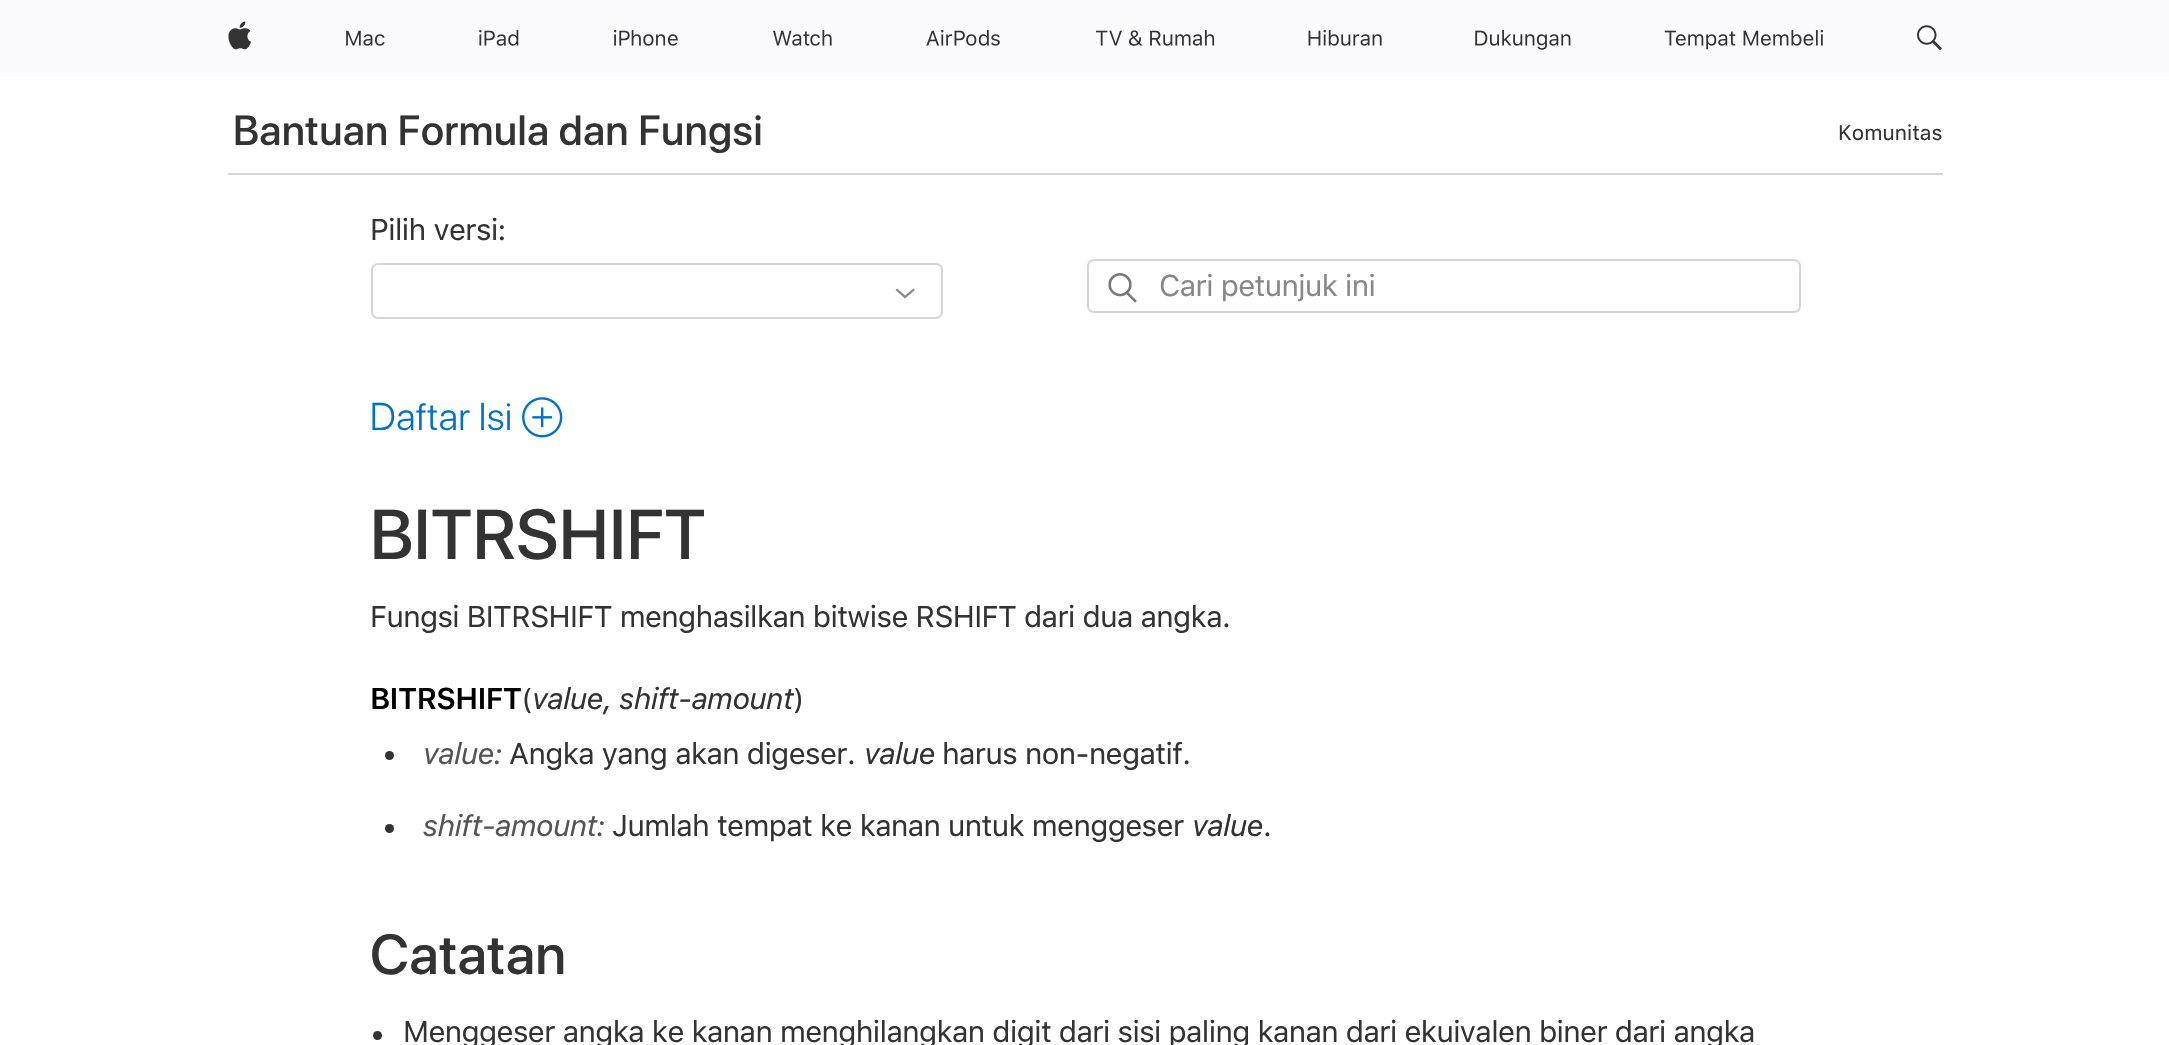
#include "include/core/SkBlurTypes.h"
#include "include/core/SkCanvas.h"
#include "include/core/SkData.h"
#include "include/core/SkFont.h"
#include "include/core/SkFontMgr.h"
#include "include/core/SkImage.h"
#include "include/core/SkMaskFilter.h"
#include "include/core/SkPaint.h"
#include "include/core/SkPathBuilder.h"
#include "include/core/SkTextBlob.h"
#include "include/effects/SkDashPathEffect.h"
#include "include/effects/SkGradientShader.h"
#include "include/utils/SkParsePath.h"

extern sk_sp<SkFontMgr> fontMgr;

void draw(SkCanvas* canvas) {
    SkPaint p;
    p.setAntiAlias(true);
    auto font = [&](const char* family, int weight, float size, bool italic = false) {
        SkFontStyle style(weight, SkFontStyle::kNormal_Width,
            italic ? SkFontStyle::kItalic_Slant : SkFontStyle::kUpright_Slant);
        SkFont result(fontMgr->matchFamilyStyle(family, style), size);
        result.setSubpixel(true);
        return result;
    };
    auto drawTracked = [&](const char* s, float x, float y, const SkFont& font, const SkPaint& ink, float letter, float word) {
        std::vector<SkGlyphID> glyphs(font.countText(s, strlen(s), SkTextEncoding::kUTF8));
        std::vector<float> xs(glyphs.size());
        font.textToGlyphs(s, strlen(s), SkTextEncoding::kUTF8, glyphs);
        font.getXPos(glyphs, xs, x);
        float extra = 0;
        for (size_t i = 0; i < glyphs.size(); i++) {
            xs[i] += extra;
            extra += letter + word * (glyphs[i] == font.unicharToGlyph(' '));
        }
        canvas->drawTextBlob(SkTextBlob::MakeFromPosHGlyphs(glyphs, xs, y, font), 0, 0, ink);
    };
    auto drawPhoto = [&](const char* path, float l, float t, float r, float b) {
        auto image = SkImages::DeferredFromEncodedData(SkData::MakeFromFileName(path));
        canvas->drawImageRect(image, SkRect::MakeLTRB(l, t, r, b), SkSamplingOptions());
    };
    canvas->clear(0xFFFFFFFF);
    p.setColor(0xFFFBFBFD);
    canvas->drawRect(SkRect::MakeLTRB(0, 0, 2169, 77), p);
    drawPhoto("media/1.png", 228, 21, 251, 50);
    drawPhoto("media/2.png", 346, 30, 385, 46);
    drawPhoto("media/3.png", 479, 29, 519, 46);
    drawPhoto("media/4.png", 613, 29, 678, 46);
    drawPhoto("media/5.png", 773, 30, 832, 46);
    drawPhoto("media/6.png", 926, 29, 1000, 46);
    drawPhoto("media/7.png", 1096, 30, 1215, 46);
    drawPhoto("media/8.png", 1308, 29, 1382, 46);
    drawPhoto("media/9.png", 1475, 30, 1571, 50);
    drawPhoto("media/10.png", 1664, 29, 1824, 50);
    drawPhoto("media/11.png", 1917, 25, 1942, 50);
    auto font1 = font("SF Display", 500, 42);
    p.setColor(0xFF333333);
    drawTracked("Bantuan Formula dan Fungsi", 233, 145, font1, p, 0.6f, 0);
    auto font2 = font("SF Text", 400, 21);
    canvas->drawString("Komunitas", 1838, 140, font2, p);
    p.setColor(0xFFD6D6D6);
    canvas->drawRect(SkRect::MakeLTRB(228, 173, 1943, 175), p);
    auto font3 = font("SF Text", 400, 29.75f);
    p.setColor(0xFF333333);
    drawTracked("Pilih versi:", 370, 240, font3, p, -0.62f, 0);
    p.setStyle(SkPaint::kStroke_Style);
    p.setStrokeWidth(2);
    p.setColor(0xFFD6D6D6);
    canvas->drawRoundRect(SkRect::MakeLTRB(372, 264, 942, 318), 6, 6, p);
    p.setStyle(SkPaint::kFill_Style);
    p.setColor(0xFF888888);
    canvas->drawPath(SkPathBuilder().moveTo(897, 288.5f).lineTo(895.5f, 290).lineTo(905, 298.5f).lineTo(915, 290).lineTo(913.5f, 288.5f).lineTo(905, 295.5f).close().detach(), p);
    p.setStyle(SkPaint::kStroke_Style);
    p.setColor(0xFFD6D6D6);
    canvas->drawRoundRect(SkRect::MakeLTRB(1088, 260, 1800, 312), 6, 6, p);
    drawPhoto("media/12.png", 1108, 273, 1137, 303);
    p.setStyle(SkPaint::kFill_Style);
    p.setColor(0xFF888888);
    drawTracked("Cari petunjuk ini", 1159, 296, font3, p, -0.62f, 0);
    auto font4 = font("SF Display", 300, 38.5f);
    p.setColor(0xFF0070C9);
    drawTracked("Daftar Isi", 370, 430, font4, p, 0.6f, 0);
    drawPhoto("media/13.png", 522, 397, 563, 438);
    auto font5 = font("SF Display", 500, 70);
    p.setColor(0xFF333333);
    drawTracked("BITRSHIFT", 370, 559, font5, p, 0.5f, 0);
    drawTracked("Fungsi BITRSHIFT menghasilkan bitwise RSHIFT dari dua angka.", 370, 627, font3, p, -0.62f, 0);
    auto font6 = font("SF Text", 600, 29.75f);
    p.setColor(0xFF000000);
    drawTracked("BITRSHIFT", 370, 709, font6, p, -0.62f, 0);
    p.setColor(0xFF333333);
    drawTracked("(", 522, 709, font3, p, -0.62f, 0);
    auto font7 = font("SF Text", 400, 29.75f, true);
    drawTracked("value, shift-amount", 531, 709, font7, p, -0.62f, 0);
    drawTracked(")", 793, 709, font3, p, -0.62f, 0);
    canvas->drawCircle(389.5f, 755.5f, 4.5f, p);
    p.setColor(0xFF555555);
    drawTracked("value:", 422, 764, font7, p, -0.62f, 0);
    p.setColor(0xFF333333);
    drawTracked("Angka yang akan digeser.", 509, 764, font3, p, -0.62f, 0);
    drawTracked("value", 863, 764, font7, p, -0.62f, 0);
    drawTracked("harus non-negatif.", 942, 764, font3, p, -0.62f, 0);
    canvas->drawCircle(389.5f, 828.5f, 4.5f, p);
    p.setColor(0xFF555555);
    drawTracked("shift-amount:", 422, 836, font7, p, -0.62f, 0);
    p.setColor(0xFF333333);
    drawTracked("Jumlah tempat ke kanan untuk menggeser", 612, 836, font3, p, -0.62f, 0);
    drawTracked("value", 1191, 836, font7, p, -0.62f, 0);
    drawTracked(".", 1263, 836, font3, p, -0.62f, 0);
    auto font8 = font("SF Display", 500, 56);
    drawTracked("Catatan", 370, 974, font8, p, 0.6f, 0);
    canvas->drawCircle(377.5f, 1035.5f, 4.5f, p);
    drawTracked("Menggeser angka ke kanan menghilangkan digit dari sisi paling kanan dari ekuivalen biner dari angka", 403, 1042, font3, p, -0.62f, 0);
}
